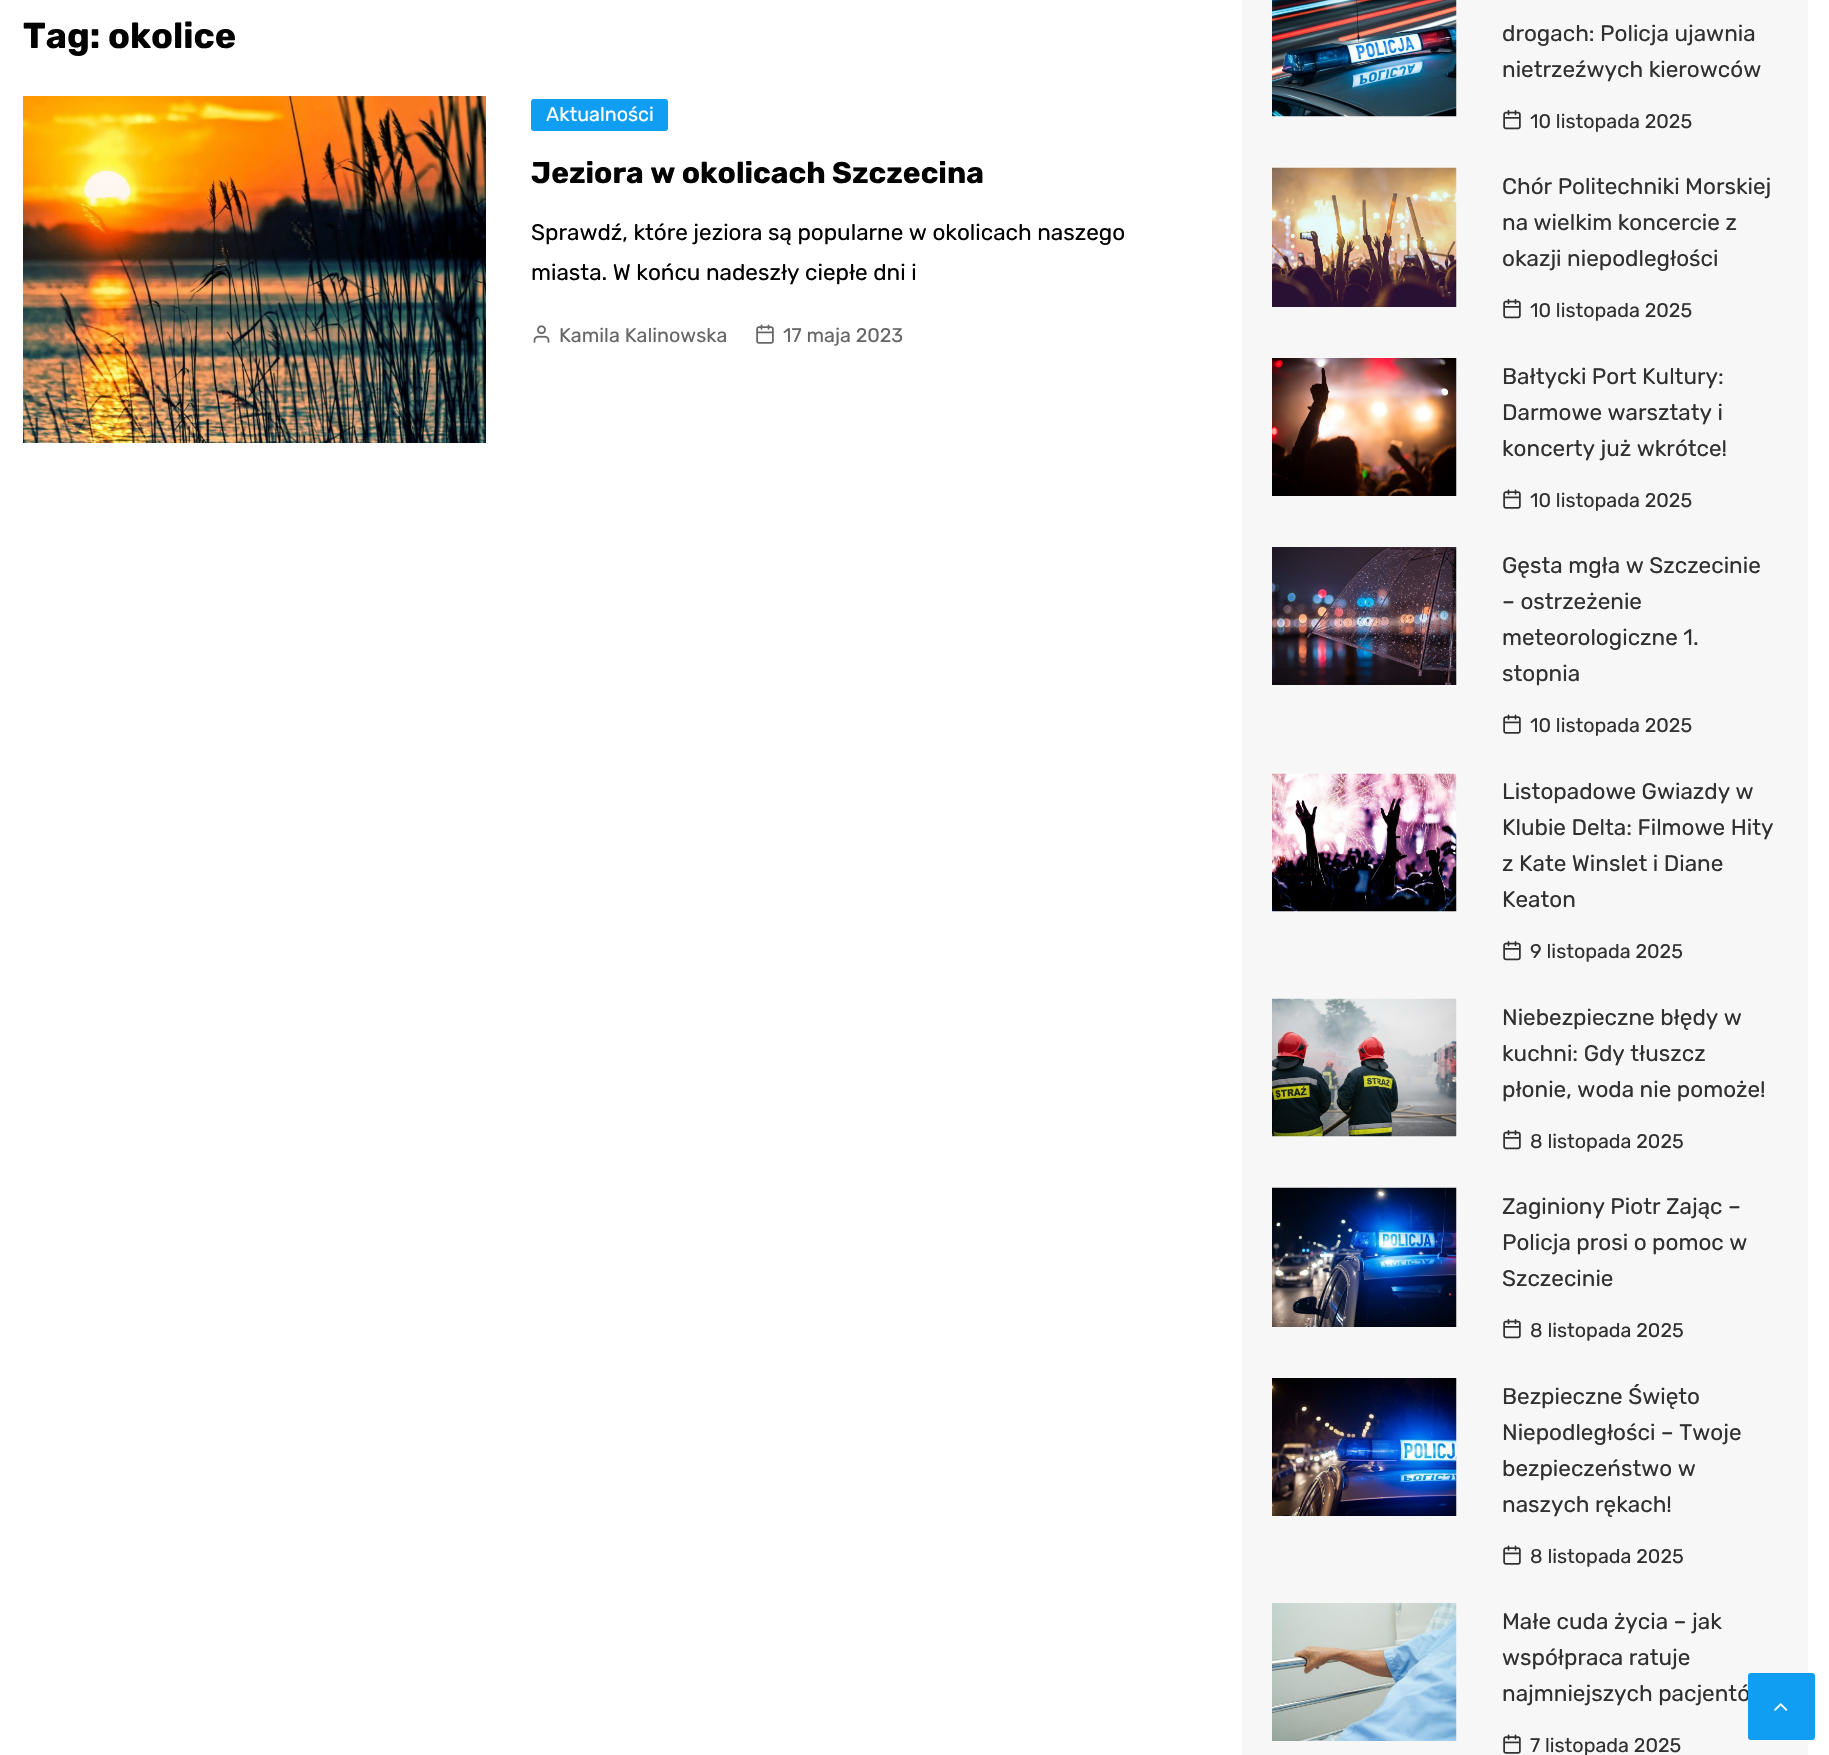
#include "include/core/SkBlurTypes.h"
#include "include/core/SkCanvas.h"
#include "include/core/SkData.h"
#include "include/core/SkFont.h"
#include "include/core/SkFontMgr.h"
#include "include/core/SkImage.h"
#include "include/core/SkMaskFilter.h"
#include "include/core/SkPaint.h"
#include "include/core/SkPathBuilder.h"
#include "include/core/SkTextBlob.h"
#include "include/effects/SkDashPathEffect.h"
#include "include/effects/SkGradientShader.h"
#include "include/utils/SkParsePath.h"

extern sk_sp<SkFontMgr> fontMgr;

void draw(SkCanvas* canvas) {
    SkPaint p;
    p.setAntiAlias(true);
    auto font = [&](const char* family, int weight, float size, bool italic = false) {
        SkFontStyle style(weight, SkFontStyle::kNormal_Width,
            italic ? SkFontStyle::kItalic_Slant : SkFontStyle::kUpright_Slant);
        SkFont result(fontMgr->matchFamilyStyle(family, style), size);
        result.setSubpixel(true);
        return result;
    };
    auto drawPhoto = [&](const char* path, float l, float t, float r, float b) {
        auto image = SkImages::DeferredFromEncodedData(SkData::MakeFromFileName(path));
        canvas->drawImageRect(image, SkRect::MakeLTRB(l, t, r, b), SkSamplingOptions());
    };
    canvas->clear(0xFFFFFFFF);
    auto font1 = font("Rubik", 700, 36);
    p.setColor(0xFF010101);
    canvas->drawString("Tag: okolice", 23, 48, font1, p);
    drawPhoto("media/1.png", 23, 96, 486, 443);
    p.setColor(0xFF109EF3);
    canvas->drawRoundRect(SkRect::MakeLTRB(531, 99, 668, 131), 3, 3, p);
    auto font2 = font("Rubik", 400, 19.75f);
    p.setColor(0xFFFFFFFF);
    canvas->drawString("Aktualności", 546, 121, font2, p);
    auto font3 = font("Rubik", 700, 30);
    p.setColor(0xFF010101);
    canvas->drawString("Jeziora w okolicach Szczecina", 531, 183, font3, p);
    auto font4 = font("Rubik", 400, 22.5f);
    canvas->drawString("Sprawdź, które jeziora są popularne w okolicach naszego", 531, 240, font4, p);
    canvas->drawString("miasta. W końcu nadeszły ciepłe dni i", 531, 280, font4, p);
    drawPhoto("media/2.png", 533, 325, 550, 343);
    p.setColor(0xFF666666);
    canvas->drawString("Kamila Kalinowska", 559, 342, font2, p);
    drawPhoto("media/3.png", 756, 324, 774, 344);
    canvas->drawString("17 maja 2023", 783, 342, font2, p);
    p.setColor(0xFFF7F7F7);
    canvas->drawRect(SkRect::MakeLTRB(1242, 0, 1808, 1755), p);
    drawPhoto("media/4.png", 1272, 0, 1457, 117);
    p.setColor(0xFF313131);
    canvas->drawString("drogach: Policja ujawnia", 1502, 41, font4, p);
    canvas->drawString("nietrzeźwych kierowców", 1502, 77, font4, p);
    drawPhoto("media/5.png", 1503, 110, 1521, 130);
    canvas->drawString("10 listopada 2025", 1530, 128, font2, p);
    drawPhoto("media/6.png", 1272, 167, 1457, 307);
    {
        const struct { const char* s; float x, y; } items[] = {
            {"Chór Politechniki Morskiej", 1502, 194},
            {"na wielkim koncercie z", 1502, 230},
            {"okazji niepodległości", 1502, 266},
        };
        for (auto [s, x, y] : items) {
            canvas->drawString(s, x, y, font4, p);
        }
    }
    drawPhoto("media/5.png", 1503, 299, 1521, 319);
    canvas->drawString("10 listopada 2025", 1530, 317, font2, p);
    drawPhoto("media/7.png", 1272, 358, 1457, 496);
    {
        const struct { const char* s; float x, y; } items[] = {
            {"Bałtycki Port Kultury:", 1502, 384},
            {"Darmowe warsztaty i", 1502, 420},
            {"koncerty już wkrótce!", 1502, 456},
        };
        for (auto [s, x, y] : items) {
            canvas->drawString(s, x, y, font4, p);
        }
    }
    drawPhoto("media/8.png", 1503, 489, 1521, 509);
    canvas->drawString("10 listopada 2025", 1530, 507, font2, p);
    drawPhoto("media/9.png", 1272, 547, 1457, 685);
    {
        const struct { const char* s; float x, y; } items[] = {
            {"Gęsta mgła w Szczecinie", 1502, 573},
            {"– ostrzeżenie", 1502, 609},
            {"meteorologiczne 1.", 1502, 645},
            {"stopnia", 1502, 681},
        };
        for (auto [s, x, y] : items) {
            canvas->drawString(s, x, y, font4, p);
        }
    }
    drawPhoto("media/8.png", 1503, 714, 1521, 734);
    canvas->drawString("10 listopada 2025", 1530, 732, font2, p);
    drawPhoto("media/10.png", 1272, 773, 1457, 912);
    {
        const struct { const char* s; float x, y; } items[] = {
            {"Listopadowe Gwiazdy w", 1502, 799},
            {"Klubie Delta: Filmowe Hity", 1502, 835},
            {"z Kate Winslet i Diane", 1502, 871},
            {"Keaton", 1502, 907},
        };
        for (auto [s, x, y] : items) {
            canvas->drawString(s, x, y, font4, p);
        }
    }
    drawPhoto("media/5.png", 1503, 941, 1521, 961);
    canvas->drawString("9 listopada 2025", 1530, 958, font2, p);
    drawPhoto("media/11.png", 1272, 998, 1457, 1137);
    {
        const struct { const char* s; float x, y; } items[] = {
            {"Niebezpieczne błędy w", 1502, 1025},
            {"kuchni: Gdy tłuszcz", 1502, 1061},
            {"płonie, woda nie pomoże!", 1502, 1097},
        };
        for (auto [s, x, y] : items) {
            canvas->drawString(s, x, y, font4, p);
        }
    }
    drawPhoto("media/5.png", 1503, 1130, 1521, 1150);
    canvas->drawString("8 listopada 2025", 1530, 1148, font2, p);
    drawPhoto("media/12.png", 1272, 1187, 1457, 1327);
    {
        const struct { const char* s; float x, y; } items[] = {
            {"Zaginiony Piotr Zając –", 1502, 1214},
            {"Policja prosi o pomoc w", 1502, 1250},
            {"Szczecinie", 1502, 1286},
        };
        for (auto [s, x, y] : items) {
            canvas->drawString(s, x, y, font4, p);
        }
    }
    drawPhoto("media/5.png", 1503, 1319, 1521, 1339);
    canvas->drawString("8 listopada 2025", 1530, 1337, font2, p);
    drawPhoto("media/13.png", 1272, 1378, 1457, 1516);
    {
        const struct { const char* s; float x, y; } items[] = {
            {"Bezpieczne Święto", 1502, 1404},
            {"Niepodległości – Twoje", 1502, 1440},
            {"bezpieczeństwo w", 1502, 1476},
            {"naszych rękach!", 1502, 1512},
        };
        for (auto [s, x, y] : items) {
            canvas->drawString(s, x, y, font4, p);
        }
    }
    drawPhoto("media/8.png", 1503, 1545, 1521, 1565);
    canvas->drawString("8 listopada 2025", 1530, 1563, font2, p);
    drawPhoto("media/14.png", 1272, 1603, 1457, 1741);
    {
        const struct { const char* s; float x, y; } items[] = {
            {"Małe cuda życia – jak", 1502, 1629},
            {"współpraca ratuje", 1502, 1665},
            {"najmniejszych pacjentó", 1502, 1701},
        };
        for (auto [s, x, y] : items) {
            canvas->drawString(s, x, y, font4, p);
        }
    }
    drawPhoto("media/8.png", 1503, 1734, 1521, 1754);
    canvas->drawString("7 listopada 2025", 1530, 1752, font2, p);
    p.setColor(0xFF109EF3);
    canvas->drawRoundRect(SkRect::MakeLTRB(1748, 1673, 1815, 1740), 3, 3, p);
    drawPhoto("media/15.png", 1774, 1703, 1788, 1711);
}
